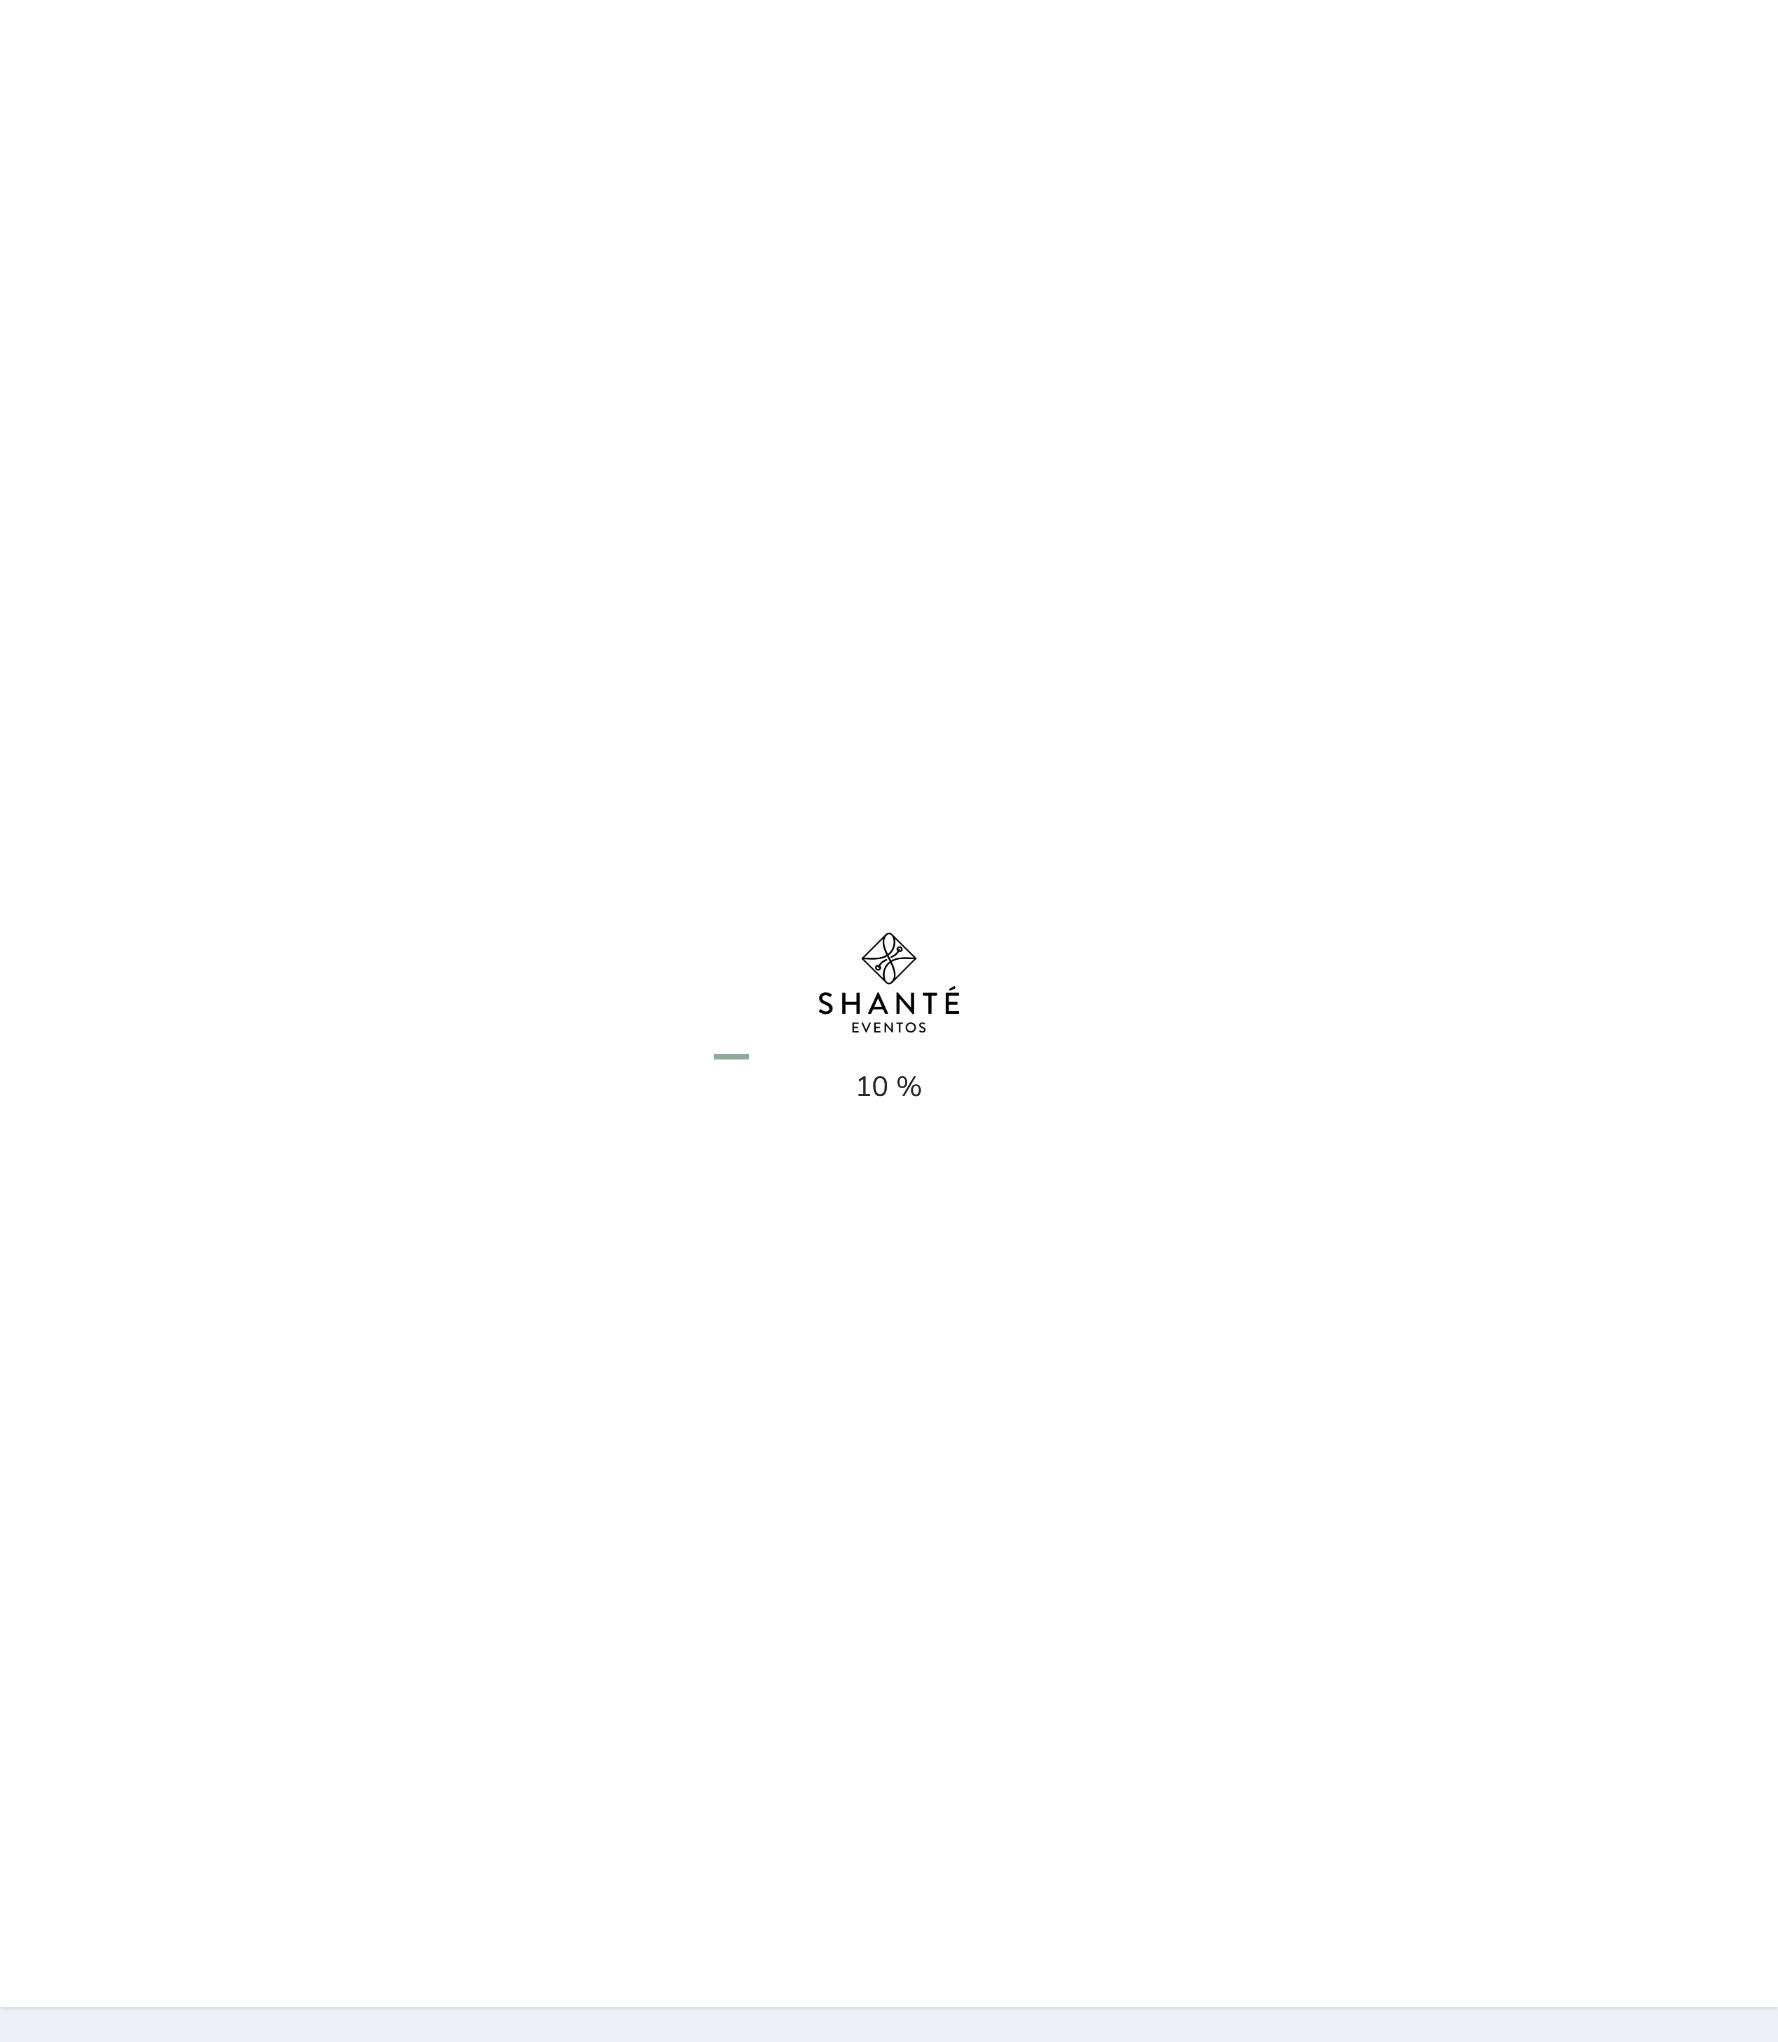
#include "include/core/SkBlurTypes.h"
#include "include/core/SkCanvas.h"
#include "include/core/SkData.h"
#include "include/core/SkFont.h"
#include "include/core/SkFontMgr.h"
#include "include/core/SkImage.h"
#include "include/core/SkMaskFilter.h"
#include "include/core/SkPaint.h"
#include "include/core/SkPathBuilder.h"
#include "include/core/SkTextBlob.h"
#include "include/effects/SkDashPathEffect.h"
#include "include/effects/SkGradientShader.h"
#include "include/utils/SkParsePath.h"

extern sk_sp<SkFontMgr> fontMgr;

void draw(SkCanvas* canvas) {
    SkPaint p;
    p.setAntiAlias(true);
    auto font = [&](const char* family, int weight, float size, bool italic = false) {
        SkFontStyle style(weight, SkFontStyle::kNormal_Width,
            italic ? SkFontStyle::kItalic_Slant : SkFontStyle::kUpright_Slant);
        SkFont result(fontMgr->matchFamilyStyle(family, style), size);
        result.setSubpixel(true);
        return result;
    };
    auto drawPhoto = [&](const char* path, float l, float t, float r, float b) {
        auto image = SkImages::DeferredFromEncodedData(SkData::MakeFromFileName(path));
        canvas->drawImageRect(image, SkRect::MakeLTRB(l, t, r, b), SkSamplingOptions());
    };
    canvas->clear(0xFFEDF0F5);
    p.setColor(0x1A2D2D3C);
    p.setMaskFilter(SkMaskFilter::MakeBlur(kNormal_SkBlurStyle, 2));
    canvas->drawRect(SkRect::MakeLTRB(0, 2, 1778, 2009), p);
    p.setMaskFilter(nullptr);
    p.setColor(0xFFFFFFFF);
    canvas->drawRect(SkRect::MakeLTRB(0, 0, 1778, 2007), p);
    drawPhoto("media/1.png", 819, 932, 959, 1033);
    canvas->save();
    canvas->clipRect(SkRect::MakeLTRB(714, 1054, 1064, 1061));
    p.setStyle(SkPaint::kStroke_Style);
    p.setStrokeWidth(5.9f);
    p.setColor(0xFF8DAA99);
    canvas->drawPath(SkPathBuilder().moveTo(714, 1056.5f).lineTo(749, 1056.5f).detach(), p);
    canvas->restore();
    auto font1 = font("Mulish", 400, 28);
    p.setStyle(SkPaint::kFill_Style);
    p.setColor(0xFF28292C);
    canvas->drawString("10 %", 855, 1096, font1, p);
}
